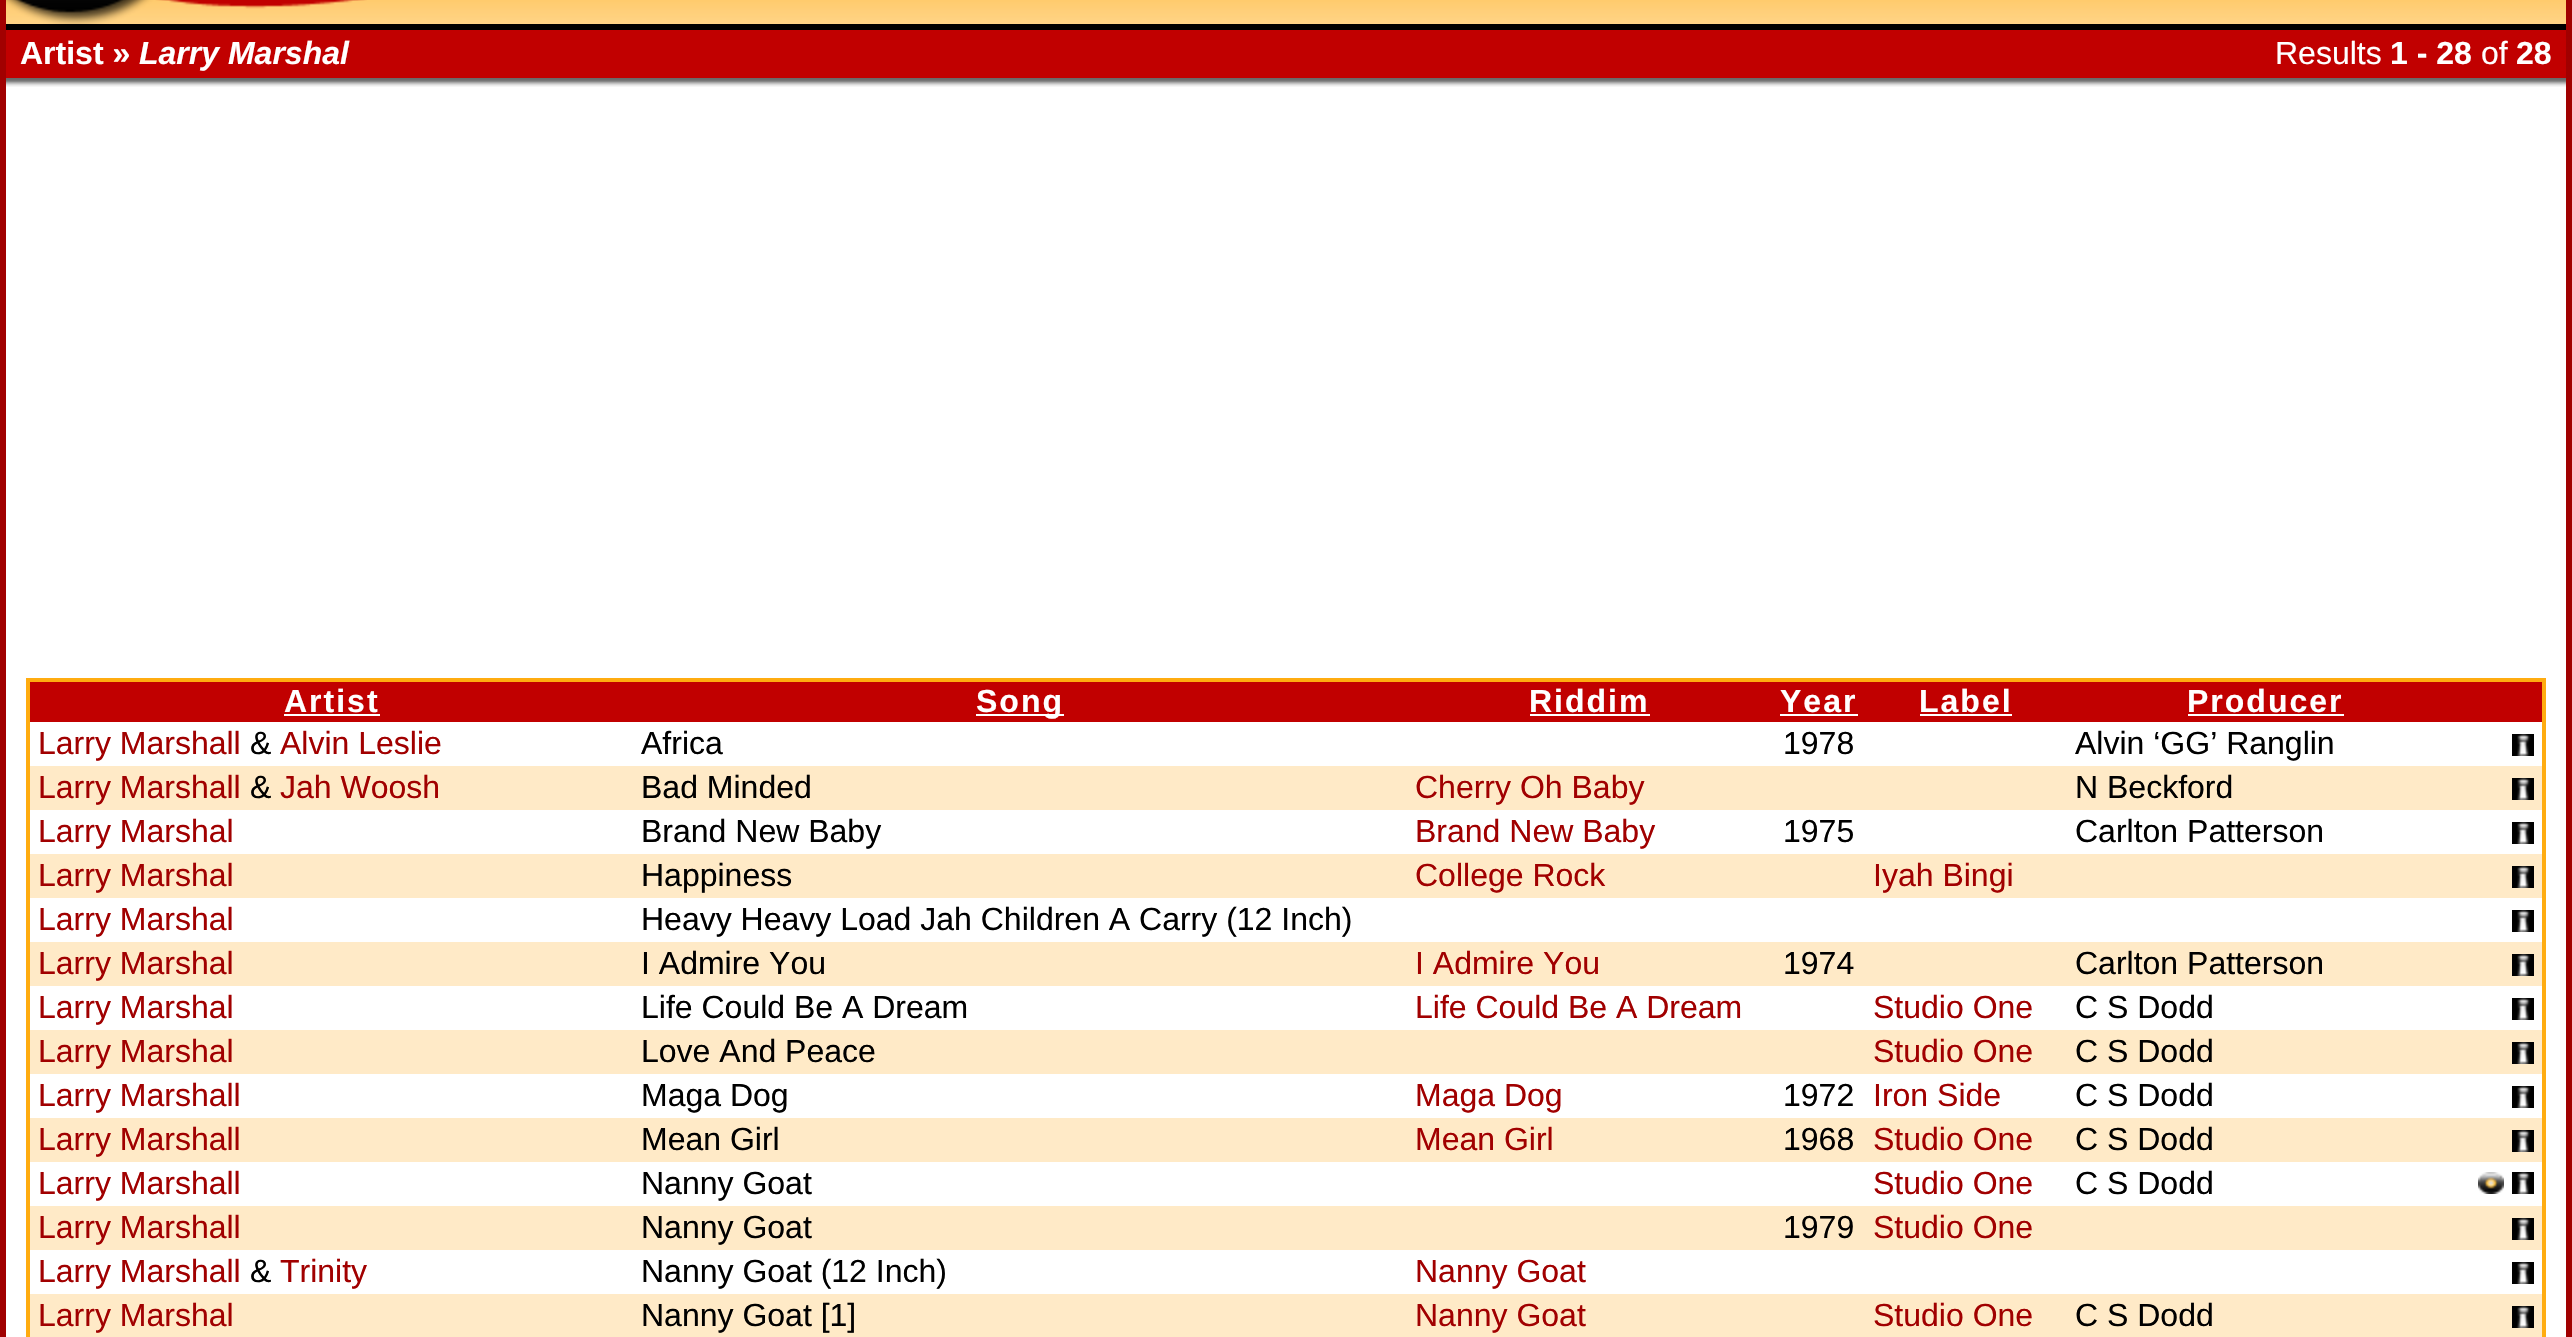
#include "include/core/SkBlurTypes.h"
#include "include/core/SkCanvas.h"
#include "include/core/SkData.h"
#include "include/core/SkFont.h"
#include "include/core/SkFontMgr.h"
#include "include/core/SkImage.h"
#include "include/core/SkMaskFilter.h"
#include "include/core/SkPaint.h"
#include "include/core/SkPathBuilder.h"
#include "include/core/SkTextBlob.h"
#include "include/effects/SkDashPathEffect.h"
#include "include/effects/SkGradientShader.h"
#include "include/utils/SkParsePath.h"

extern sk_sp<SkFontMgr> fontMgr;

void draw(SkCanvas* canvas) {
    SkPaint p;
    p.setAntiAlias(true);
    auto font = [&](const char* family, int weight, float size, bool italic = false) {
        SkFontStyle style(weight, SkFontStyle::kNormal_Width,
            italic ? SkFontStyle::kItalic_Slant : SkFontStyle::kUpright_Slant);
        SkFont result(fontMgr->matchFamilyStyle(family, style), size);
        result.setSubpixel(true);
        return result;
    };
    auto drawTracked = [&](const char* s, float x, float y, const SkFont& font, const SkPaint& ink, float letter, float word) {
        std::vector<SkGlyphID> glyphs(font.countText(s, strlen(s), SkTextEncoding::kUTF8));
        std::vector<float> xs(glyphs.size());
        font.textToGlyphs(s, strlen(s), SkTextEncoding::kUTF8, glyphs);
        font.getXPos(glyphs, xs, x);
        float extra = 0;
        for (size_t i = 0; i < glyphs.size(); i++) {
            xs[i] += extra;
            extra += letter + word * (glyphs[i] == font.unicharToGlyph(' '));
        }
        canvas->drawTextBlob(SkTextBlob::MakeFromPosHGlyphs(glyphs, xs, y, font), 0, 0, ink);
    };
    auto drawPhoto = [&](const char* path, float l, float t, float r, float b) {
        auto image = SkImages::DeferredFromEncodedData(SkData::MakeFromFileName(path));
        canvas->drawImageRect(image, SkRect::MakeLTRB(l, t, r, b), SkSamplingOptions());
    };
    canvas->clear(0xFFFFFFFF);
    p.setColor(0xFFA10000);
    canvas->drawRect(SkRect::MakeLTRB(2566, 0, 2572, 1337), p);
    canvas->drawRect(SkRect::MakeLTRB(0, 0, 6, 1337), p);
    drawPhoto("media/1.png", 6, 0, 2566, 24);
    drawPhoto("media/2.png", 6, 0, 367, 24);
    p.setColor(0xFFC10000);
    canvas->drawRect(SkRect::MakeLTRB(6, 30, 2566, 78), p);
    p.setColor(0xFF000000);
    canvas->drawRect(SkRect::MakeLTRB(6, 24, 2566, 30), p);
    auto font1 = font("Liberation Sans", 700, 32);
    p.setColor(0xFFFFFFFF);
    canvas->drawString("Artist »", 20, 64, font1, p);
    auto font2 = font("Liberation Sans", 700, 32, true);
    canvas->drawString("Larry Marshal", 139, 64, font2, p);
    auto font3 = font("Liberation Sans", 400, 32);
    canvas->drawString("Results", 2275, 64, font3, p);
    canvas->drawString("1 - 28", 2390, 64, font1, p);
    canvas->drawString("of", 2481, 64, font3, p);
    canvas->drawString("28", 2516, 64, font1, p);
    drawPhoto("media/3.png", 6, 78, 2566, 87);
    p.setStyle(SkPaint::kStroke_Style);
    p.setStrokeWidth(4);
    p.setColor(0xFFFFAC10);
    canvas->drawRect(SkRect::MakeLTRB(28, 680, 2544, 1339), p);
    p.setStyle(SkPaint::kFill_Style);
    p.setColor(0xFFC10000);
    canvas->drawRect(SkRect::MakeLTRB(30, 682, 2542, 722), p);
    p.setColor(0xFFFFFFFF);
    drawTracked("Artist", 284, 712, font1, p, 2, 0);
    canvas->drawRect(SkRect::MakeLTRB(284, 714, 380, 716), p);
    canvas->drawRect(SkRect::MakeLTRB(976, 714, 1064, 716), p);
    drawTracked("Song", 976, 712, font1, p, 2, 0);
    drawTracked("Riddim", 1529, 712, font1, p, 2, 0);
    canvas->drawRect(SkRect::MakeLTRB(1530, 714, 1650, 716), p);
    drawTracked("Year", 1780, 712, font1, p, 2, 0);
    canvas->drawRect(SkRect::MakeLTRB(1780, 714, 1858, 716), p);
    drawTracked("Label", 1919, 712, font1, p, 2, 0);
    canvas->drawRect(SkRect::MakeLTRB(1920, 714, 2012, 716), p);
    drawTracked("Producer", 2187, 712, font1, p, 2, 0);
    canvas->drawRect(SkRect::MakeLTRB(2188, 714, 2344, 716), p);
    p.setColor(0xFFA10000);
    canvas->drawString("Larry Marshall", 38, 754, font3, p);
    p.setColor(0xFF000000);
    canvas->drawString("&", 250, 754, font3, p);
    p.setColor(0xFFA10000);
    canvas->drawString("Alvin Leslie", 280, 754, font3, p);
    p.setColor(0xFF000000);
    {
        const struct { const char* s; float x, y; } items[] = {
            {"Africa", 641, 754},
            {"1978", 1783, 754},
            {"Alvin ‘GG’ Ranglin", 2075, 754},
        };
        for (auto [s, x, y] : items) {
            canvas->drawString(s, x, y, font3, p);
        }
    }
    drawPhoto("media/4.png", 2512, 734, 2534, 756);
    p.setColor(0xFFFFEAC7);
    canvas->drawRect(SkRect::MakeLTRB(30, 766, 2542, 810), p);
    p.setColor(0xFFA10000);
    canvas->drawString("Larry Marshall", 38, 798, font3, p);
    p.setColor(0xFF000000);
    canvas->drawString("&", 250, 798, font3, p);
    p.setColor(0xFFA10000);
    canvas->drawString("Jah Woosh", 280, 798, font3, p);
    p.setColor(0xFF000000);
    canvas->drawString("Bad Minded", 641, 798, font3, p);
    p.setColor(0xFFA10000);
    canvas->drawString("Cherry Oh Baby", 1415, 798, font3, p);
    p.setColor(0xFF000000);
    canvas->drawString("N Beckford", 2075, 798, font3, p);
    drawPhoto("media/4.png", 2512, 778, 2534, 800);
    p.setColor(0xFFA10000);
    canvas->drawString("Larry Marshal", 38, 842, font3, p);
    p.setColor(0xFF000000);
    canvas->drawString("Brand New Baby", 641, 842, font3, p);
    p.setColor(0xFFA10000);
    canvas->drawString("Brand New Baby", 1415, 842, font3, p);
    p.setColor(0xFF000000);
    canvas->drawString("1975", 1783, 842, font3, p);
    canvas->drawString("Carlton Patterson", 2075, 842, font3, p);
    drawPhoto("media/4.png", 2512, 822, 2534, 844);
    p.setColor(0xFFFFEAC7);
    canvas->drawRect(SkRect::MakeLTRB(30, 854, 2542, 898), p);
    p.setColor(0xFFA10000);
    canvas->drawString("Larry Marshal", 38, 886, font3, p);
    p.setColor(0xFF000000);
    canvas->drawString("Happiness", 641, 886, font3, p);
    p.setColor(0xFFA10000);
    canvas->drawString("College Rock", 1415, 886, font3, p);
    canvas->drawString("Iyah Bingi", 1873, 886, font3, p);
    drawPhoto("media/4.png", 2512, 866, 2534, 888);
    canvas->drawString("Larry Marshal", 38, 930, font3, p);
    p.setColor(0xFF000000);
    canvas->drawString("Heavy Heavy Load Jah Children A Carry (12 Inch)", 641, 930, font3, p);
    drawPhoto("media/4.png", 2512, 910, 2534, 932);
    p.setColor(0xFFFFEAC7);
    canvas->drawRect(SkRect::MakeLTRB(30, 942, 2542, 986), p);
    p.setColor(0xFFA10000);
    canvas->drawString("Larry Marshal", 38, 974, font3, p);
    p.setColor(0xFF000000);
    canvas->drawString("I Admire You", 641, 974, font3, p);
    p.setColor(0xFFA10000);
    canvas->drawString("I Admire You", 1415, 974, font3, p);
    p.setColor(0xFF000000);
    canvas->drawString("1974", 1783, 974, font3, p);
    canvas->drawString("Carlton Patterson", 2075, 974, font3, p);
    drawPhoto("media/4.png", 2512, 954, 2534, 976);
    p.setColor(0xFFA10000);
    canvas->drawString("Larry Marshal", 38, 1018, font3, p);
    p.setColor(0xFF000000);
    canvas->drawString("Life Could Be A Dream", 641, 1018, font3, p);
    p.setColor(0xFFA10000);
    canvas->drawString("Life Could Be A Dream", 1415, 1018, font3, p);
    canvas->drawString("Studio One", 1873, 1018, font3, p);
    p.setColor(0xFF000000);
    canvas->drawString("C S Dodd", 2075, 1018, font3, p);
    drawPhoto("media/4.png", 2512, 998, 2534, 1020);
    p.setColor(0xFFFFEAC7);
    canvas->drawRect(SkRect::MakeLTRB(30, 1030, 2542, 1074), p);
    p.setColor(0xFFA10000);
    canvas->drawString("Larry Marshal", 38, 1062, font3, p);
    p.setColor(0xFF000000);
    canvas->drawString("Love And Peace", 641, 1062, font3, p);
    p.setColor(0xFFA10000);
    canvas->drawString("Studio One", 1873, 1062, font3, p);
    p.setColor(0xFF000000);
    canvas->drawString("C S Dodd", 2075, 1062, font3, p);
    drawPhoto("media/4.png", 2512, 1042, 2534, 1064);
    p.setColor(0xFFA10000);
    canvas->drawString("Larry Marshall", 38, 1106, font3, p);
    p.setColor(0xFF000000);
    canvas->drawString("Maga Dog", 641, 1106, font3, p);
    p.setColor(0xFFA10000);
    canvas->drawString("Maga Dog", 1415, 1106, font3, p);
    p.setColor(0xFF000000);
    canvas->drawString("1972", 1783, 1106, font3, p);
    p.setColor(0xFFA10000);
    canvas->drawString("Iron Side", 1873, 1106, font3, p);
    p.setColor(0xFF000000);
    canvas->drawString("C S Dodd", 2075, 1106, font3, p);
    drawPhoto("media/4.png", 2512, 1086, 2534, 1108);
    p.setColor(0xFFFFEAC7);
    canvas->drawRect(SkRect::MakeLTRB(30, 1118, 2542, 1162), p);
    p.setColor(0xFFA10000);
    canvas->drawString("Larry Marshall", 38, 1150, font3, p);
    p.setColor(0xFF000000);
    canvas->drawString("Mean Girl", 641, 1150, font3, p);
    p.setColor(0xFFA10000);
    canvas->drawString("Mean Girl", 1415, 1150, font3, p);
    p.setColor(0xFF000000);
    canvas->drawString("1968", 1783, 1150, font3, p);
    p.setColor(0xFFA10000);
    canvas->drawString("Studio One", 1873, 1150, font3, p);
    p.setColor(0xFF000000);
    canvas->drawString("C S Dodd", 2075, 1150, font3, p);
    drawPhoto("media/4.png", 2512, 1130, 2534, 1152);
    p.setColor(0xFFA10000);
    canvas->drawString("Larry Marshall", 38, 1194, font3, p);
    p.setColor(0xFF000000);
    canvas->drawString("Nanny Goat", 641, 1194, font3, p);
    p.setColor(0xFFA10000);
    canvas->drawString("Studio One", 1873, 1194, font3, p);
    p.setColor(0xFF000000);
    canvas->drawString("C S Dodd", 2075, 1194, font3, p);
    drawPhoto("media/5.png", 2478, 1172, 2504, 1194);
    drawPhoto("media/4.png", 2512, 1172, 2534, 1194);
    p.setColor(0xFFFFEAC7);
    canvas->drawRect(SkRect::MakeLTRB(30, 1206, 2542, 1250), p);
    p.setColor(0xFFA10000);
    canvas->drawString("Larry Marshall", 38, 1238, font3, p);
    p.setColor(0xFF000000);
    canvas->drawString("Nanny Goat", 641, 1238, font3, p);
    canvas->drawString("1979", 1783, 1238, font3, p);
    p.setColor(0xFFA10000);
    canvas->drawString("Studio One", 1873, 1238, font3, p);
    drawPhoto("media/4.png", 2512, 1218, 2534, 1240);
    canvas->drawString("Larry Marshall", 38, 1282, font3, p);
    p.setColor(0xFF000000);
    canvas->drawString("&", 250, 1282, font3, p);
    p.setColor(0xFFA10000);
    canvas->drawString("Trinity", 280, 1282, font3, p);
    p.setColor(0xFF000000);
    canvas->drawString("Nanny Goat (12 Inch)", 641, 1282, font3, p);
    p.setColor(0xFFA10000);
    canvas->drawString("Nanny Goat", 1415, 1282, font3, p);
    drawPhoto("media/4.png", 2512, 1262, 2534, 1284);
    p.setColor(0xFFFFEAC7);
    canvas->drawRect(SkRect::MakeLTRB(30, 1294, 2542, 1337), p);
    p.setColor(0xFFA10000);
    canvas->drawString("Larry Marshal", 38, 1326, font3, p);
    p.setColor(0xFF000000);
    canvas->drawString("Nanny Goat [1]", 641, 1326, font3, p);
    p.setColor(0xFFA10000);
    canvas->drawString("Nanny Goat", 1415, 1326, font3, p);
    canvas->drawString("Studio One", 1873, 1326, font3, p);
    p.setColor(0xFF000000);
    canvas->drawString("C S Dodd", 2075, 1326, font3, p);
    drawPhoto("media/4.png", 2512, 1306, 2534, 1328);
}
